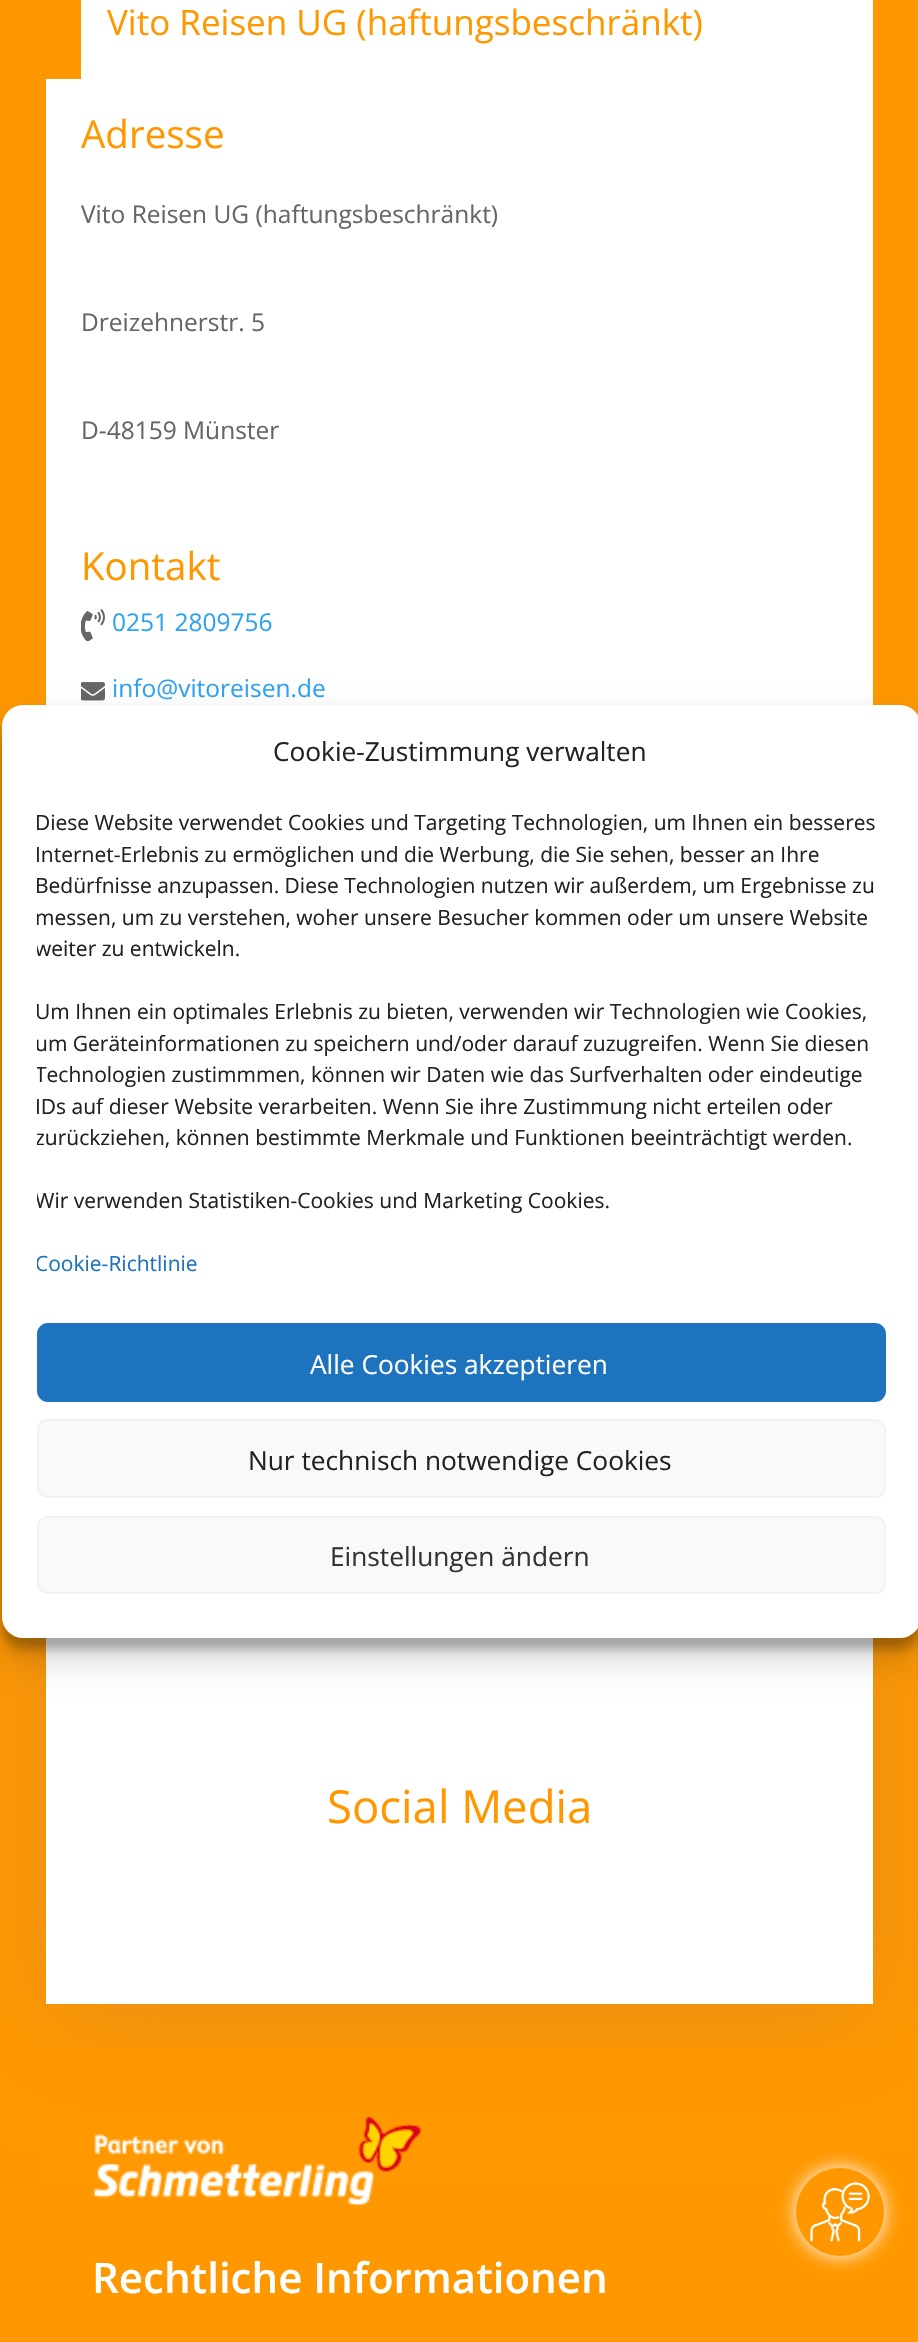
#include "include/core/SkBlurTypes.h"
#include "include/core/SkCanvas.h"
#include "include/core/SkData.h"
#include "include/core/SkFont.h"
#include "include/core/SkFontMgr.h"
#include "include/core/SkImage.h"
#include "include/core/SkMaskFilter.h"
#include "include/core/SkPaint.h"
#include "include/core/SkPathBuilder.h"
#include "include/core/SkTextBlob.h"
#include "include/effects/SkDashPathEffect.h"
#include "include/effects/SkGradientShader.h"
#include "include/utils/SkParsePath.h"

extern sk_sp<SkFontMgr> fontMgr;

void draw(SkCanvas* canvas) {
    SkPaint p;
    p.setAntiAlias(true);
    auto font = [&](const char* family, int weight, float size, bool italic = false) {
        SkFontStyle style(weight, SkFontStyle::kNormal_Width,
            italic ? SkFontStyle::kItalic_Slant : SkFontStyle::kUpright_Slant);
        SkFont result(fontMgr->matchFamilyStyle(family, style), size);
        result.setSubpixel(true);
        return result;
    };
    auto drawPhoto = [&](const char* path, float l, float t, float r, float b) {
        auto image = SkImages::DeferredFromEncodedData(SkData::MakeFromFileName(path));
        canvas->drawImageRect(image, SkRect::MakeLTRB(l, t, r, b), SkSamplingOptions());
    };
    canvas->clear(0xFFFF9800);
    p.setColor(0xFFFFFFFF);
    canvas->drawRect(SkRect::MakeLTRB(46, 0, 873, 705), p);
    p.setColor(0xFFFF9800);
    canvas->drawRect(SkRect::MakeLTRB(46, 0, 81, 79), p);
    auto font1 = font("Open Sans", 400, 35);
    canvas->drawString("Vito Reisen UG (haftungsbeschränkt)", 107, 35, font1, p);
    auto font2 = font("Open Sans", 400, 38.5f);
    canvas->drawString("Adresse", 81, 148, font2, p);
    auto font3 = font("Open Sans", 400, 24.5f);
    p.setColor(0xFF666666);
    {
        const struct { const char* s; float x, y; } items[] = {
            {"Vito Reisen UG (haftungsbeschränkt)", 81, 223},
            {"Dreizehnerstr. 5", 81, 331},
            {"D-48159 Münster", 81, 439},
        };
        for (auto [s, x, y] : items) {
            canvas->drawString(s, x, y, font3, p);
        }
    }
    p.setColor(0xFFFF9800);
    canvas->drawString("Kontakt", 81, 580, font2, p);
    drawPhoto("media/1.png", 81, 609, 105, 641);
    p.setColor(0xFF2EA3F2);
    canvas->drawString("0251 2809756", 112, 631, font3, p);
    drawPhoto("media/2.png", 81, 682, 105, 701);
    canvas->drawString("info@vitoreisen.de", 112, 697, font3, p);
    p.setColor(0x1F474AB6);
    p.setMaskFilter(SkMaskFilter::MakeBlur(kNormal_SkBlurStyle, 52.5f));
    canvas->drawRect(SkRect::MakeLTRB(46, 1461, 873, 2021), p);
    p.setMaskFilter(nullptr);
    p.setColor(0xFFFFFFFF);
    canvas->drawRect(SkRect::MakeLTRB(46, 1638, 873, 2004), p);
    auto font4 = font("Open Sans", 400, 45.5f);
    p.setColor(0xFFFF9800);
    canvas->drawString("Social Media", 327, 1823, font4, p);
    canvas->drawRect(SkRect::MakeLTRB(31, 2048, 888, 2084), p);
    drawPhoto("media/3.png", 93, 2117, 422, 2205);
    auto font5 = font("Open Sans", 600, 42);
    p.setColor(0xFFFFFFFF);
    canvas->drawString("Rechtliche Informationen", 92, 2293, font5, p);
    p.setMaskFilter(SkMaskFilter::MakeBlur(kNormal_SkBlurStyle, 9));
    canvas->drawRoundRect(SkRect::MakeLTRB(796, 2168, 884, 2256), 44, 44, p);
    p.setMaskFilter(nullptr);
    p.setColor(0xFFFF9800);
    canvas->drawCircle(840, 2212, 44, p);
    drawPhoto("media/4.png", 810, 2182, 870, 2242);
    p.setColor(0x3B000000);
    p.setMaskFilter(SkMaskFilter::MakeBlur(kNormal_SkBlurStyle, 5));
    canvas->drawRoundRect(SkRect::MakeLTRB(2, 716, 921, 1649), 21, 21, p);
    p.setMaskFilter(nullptr);
    p.setColor(0x30000000);
    p.setMaskFilter(SkMaskFilter::MakeBlur(kNormal_SkBlurStyle, 17.5f));
    canvas->drawRoundRect(SkRect::MakeLTRB(2, 723, 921, 1656), 21, 21, p);
    p.setMaskFilter(nullptr);
    p.setColor(0xFFFFFFFF);
    canvas->drawRoundRect(SkRect::MakeLTRB(2, 705, 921, 1638), 21, 21, p);
    auto font6 = font("Open Sans", 400, 26.25f);
    p.setColor(0xFF222222);
    canvas->drawString("Cookie-Zustimmung verwalten", 273, 761, font6, p);
    auto font7 = font("Open Sans", 400, 21);
    {
        const struct { const char* s; float x, y; } items[] = {
            {"Diese Website verwendet Cookies und Targeting Technologien, um Ihnen ein besseres", 35, 830},
            {"Internet-Erlebnis zu ermöglichen und die Werbung, die Sie sehen, besser an Ihre", 35, 862},
            {"Bedürfnisse anzupassen. Diese Technologien nutzen wir außerdem, um Ergebnisse zu", 35, 893},
        };
        for (auto [s, x, y] : items) {
            canvas->drawString(s, x, y, font7, p);
        }
    }
    canvas->save();
    canvas->clipRect(SkRect::MakeLTRB(37, 807, 886, 1288));
    {
        const struct { const char* s; float x, y; } items[] = {
            {"messen, um zu verstehen, woher unsere Besucher kommen oder um unsere Website", 35, 925},
            {"weiter zu entwickeln.", 35, 956},
            {"Um Ihnen ein optimales Erlebnis zu bieten, verwenden wir Technologien wie Cookies,", 35, 1019},
            {"um Geräteinformationen zu speichern und/oder darauf zuzugreifen. Wenn Sie diesen", 35, 1051},
            {"Technologien zustimmmen, können wir Daten wie das Surfverhalten oder eindeutige", 35, 1082},
        };
        for (auto [s, x, y] : items) {
            canvas->drawString(s, x, y, font7, p);
        }
    }
    canvas->restore();
    canvas->drawString("IDs auf dieser Website verarbeiten. Wenn Sie ihre Zustimmung nicht erteilen oder", 35, 1114, font7, p);
    canvas->save();
    canvas->clipRect(SkRect::MakeLTRB(37, 807, 886, 1288));
    canvas->drawString("zurückziehen, können bestimmte Merkmale und Funktionen beeinträchtigt werden.", 35, 1145, font7, p);
    canvas->drawString("Wir verwenden Statistiken-Cookies und Marketing Cookies.", 35, 1208, font7, p);
    p.setColor(0xFF1E73BE);
    canvas->drawString("Cookie-Richtlinie", 35, 1271, font7, p);
    canvas->restore();
    canvas->drawRoundRect(SkRect::MakeLTRB(38, 1324, 885, 1401), 10, 10, p);
    p.setStyle(SkPaint::kStroke_Style);
    p.setStrokeWidth(2);
    canvas->drawRoundRect(SkRect::MakeLTRB(38, 1324, 885, 1401), 10, 10, p);
    p.setStyle(SkPaint::kFill_Style);
    p.setColor(0xFFFFFFFF);
    canvas->drawString("Alle Cookies akzeptieren", 310, 1374, font6, p);
    p.setColor(0xFFF9F9F9);
    canvas->drawRoundRect(SkRect::MakeLTRB(38, 1420, 885, 1497), 10, 10, p);
    p.setStyle(SkPaint::kStroke_Style);
    p.setColor(0xFFF2F2F2);
    canvas->drawRoundRect(SkRect::MakeLTRB(38, 1420, 885, 1497), 10, 10, p);
    p.setStyle(SkPaint::kFill_Style);
    p.setColor(0xFF222222);
    canvas->drawString("Nur technisch notwendige Cookies", 248, 1470, font6, p);
    p.setColor(0xFFF9F9F9);
    canvas->drawRoundRect(SkRect::MakeLTRB(38, 1517, 885, 1593), 10, 10, p);
    p.setStyle(SkPaint::kStroke_Style);
    p.setColor(0xFFF2F2F2);
    canvas->drawRoundRect(SkRect::MakeLTRB(38, 1517, 885, 1593), 10, 10, p);
    p.setStyle(SkPaint::kFill_Style);
    p.setColor(0xFF333333);
    canvas->drawString("Einstellungen ändern", 330, 1566, font6, p);
}
